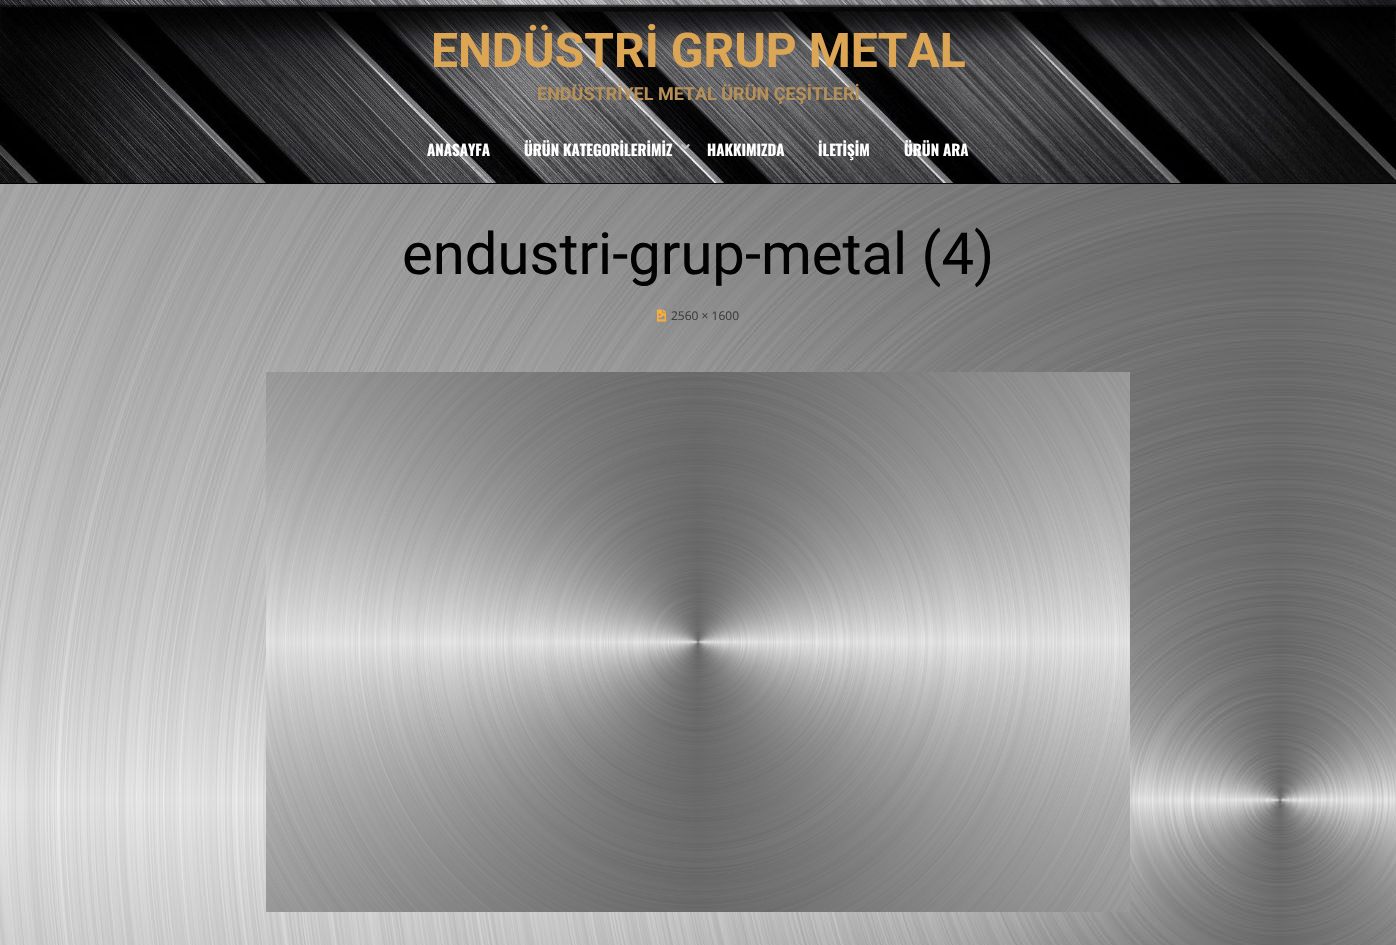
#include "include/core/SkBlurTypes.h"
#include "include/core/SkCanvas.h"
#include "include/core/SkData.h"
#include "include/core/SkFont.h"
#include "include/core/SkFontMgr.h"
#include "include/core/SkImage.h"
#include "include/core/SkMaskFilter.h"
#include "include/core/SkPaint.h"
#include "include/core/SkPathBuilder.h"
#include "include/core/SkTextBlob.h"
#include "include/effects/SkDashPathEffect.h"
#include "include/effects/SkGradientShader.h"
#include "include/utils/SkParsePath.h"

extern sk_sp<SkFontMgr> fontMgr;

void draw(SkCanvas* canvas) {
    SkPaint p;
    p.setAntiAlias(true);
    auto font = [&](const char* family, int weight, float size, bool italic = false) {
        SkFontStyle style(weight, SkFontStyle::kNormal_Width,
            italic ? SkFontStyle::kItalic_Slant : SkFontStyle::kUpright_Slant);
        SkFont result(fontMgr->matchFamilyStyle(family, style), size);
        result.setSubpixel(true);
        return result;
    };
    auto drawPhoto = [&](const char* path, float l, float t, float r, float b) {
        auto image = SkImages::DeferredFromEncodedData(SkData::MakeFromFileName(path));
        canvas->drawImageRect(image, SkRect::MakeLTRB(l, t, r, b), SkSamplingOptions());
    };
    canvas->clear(0xFFFFFFFF);
    drawPhoto("media/1.png", 0, 184, 1396, 945);
    p.setColor(0xFF020202);
    canvas->drawRect(SkRect::MakeLTRB(0, 183, 1396, 184), p);
    drawPhoto("media/2.png", 0, 0, 1396, 183);
    auto font1 = font("Roboto", 700, 48);
    p.setColor(0xFFDDA654);
    canvas->drawString("ENDÜSTRİ GRUP METAL", 431, 67, font1, p);
    auto font2 = font("Roboto", 700, 18);
    p.setColor(0xFFB69057);
    canvas->drawString("ENDÜSTRİYEL METAL ÜRÜN ÇEŞİTLERİ", 537, 100, font2, p);
    auto font3 = font("Oswald", 700, 15);
    p.setColor(0xFFFFFFFF);
    canvas->drawString("ANASAYFA", 427, 156, font3, p);
    canvas->drawString("ÜRÜN KATEGORİLERİMİZ", 524, 156, font3, p);
    drawPhoto("media/3.png", 681, 144, 690, 150);
    {
        const struct { const char* s; float x, y; } items[] = {
            {"HAKKIMIZDA", 707, 156},
            {"İLETİŞİM", 818, 156},
            {"ÜRÜN ARA", 904, 156},
        };
        for (auto [s, x, y] : items) {
            canvas->drawString(s, x, y, font3, p);
        }
    }
    auto font4 = font("Roboto", 400, 58);
    p.setColor(0xFF020202);
    canvas->drawString("endustri-grup-metal (4)", 402, 274, font4, p);
    drawPhoto("media/4.png", 657, 309, 666, 322);
    auto font5 = font("Open Sans", 400, 12);
    p.setColor(0xFF3D3D3D);
    canvas->drawString("2560 × 1600", 671, 320, font5, p);
    drawPhoto("media/5.png", 266, 372, 1130, 912);
}
